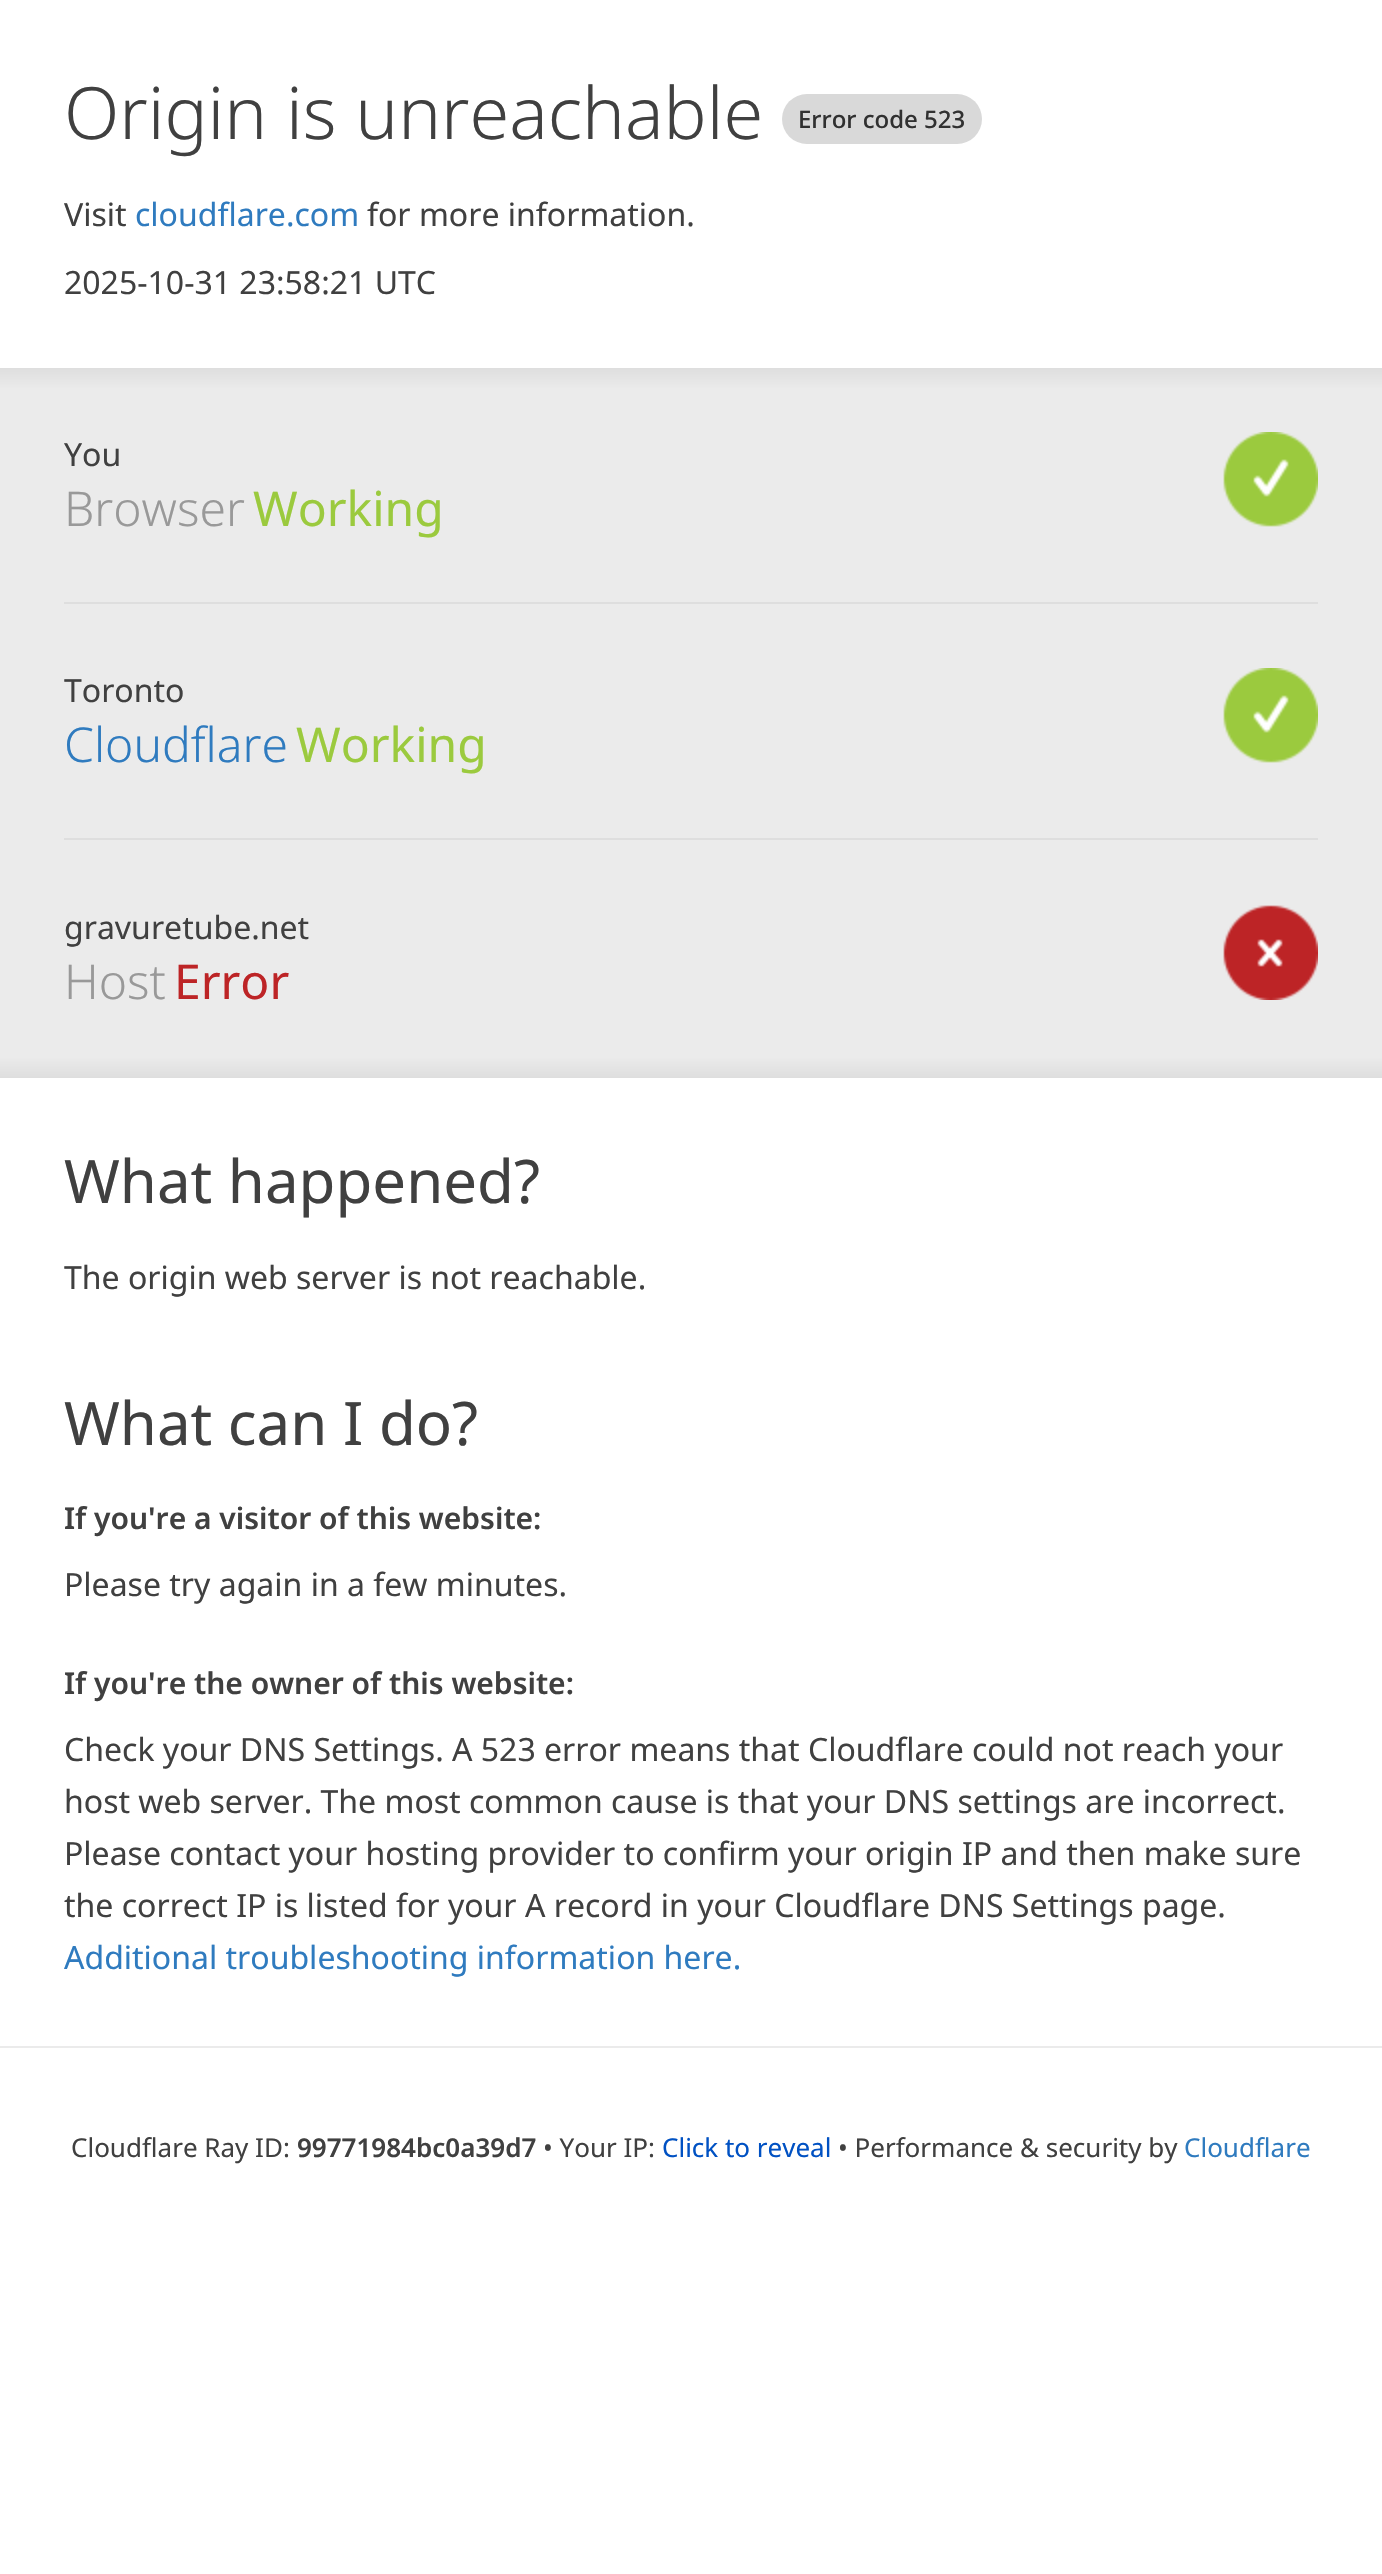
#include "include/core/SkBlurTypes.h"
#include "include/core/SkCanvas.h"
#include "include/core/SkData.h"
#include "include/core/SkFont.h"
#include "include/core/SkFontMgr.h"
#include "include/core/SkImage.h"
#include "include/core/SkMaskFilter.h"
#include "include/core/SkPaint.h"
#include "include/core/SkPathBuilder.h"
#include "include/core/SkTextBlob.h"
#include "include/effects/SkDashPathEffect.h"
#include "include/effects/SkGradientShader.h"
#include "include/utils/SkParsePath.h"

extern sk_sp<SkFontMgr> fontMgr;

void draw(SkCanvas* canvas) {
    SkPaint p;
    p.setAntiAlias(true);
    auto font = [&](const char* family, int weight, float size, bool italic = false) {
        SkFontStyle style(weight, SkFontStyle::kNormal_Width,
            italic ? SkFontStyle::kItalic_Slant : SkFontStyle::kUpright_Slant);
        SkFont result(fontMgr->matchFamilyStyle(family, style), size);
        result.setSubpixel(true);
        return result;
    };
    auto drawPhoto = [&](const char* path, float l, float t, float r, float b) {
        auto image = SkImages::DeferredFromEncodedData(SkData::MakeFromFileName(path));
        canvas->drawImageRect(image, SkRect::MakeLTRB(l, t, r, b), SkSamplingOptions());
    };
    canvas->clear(0xFFFFFFFF);
    auto font1 = font("Noto Sans", 300, 72);
    p.setColor(0xFF404040);
    canvas->drawString("Origin is unreachable", 64, 139, font1, p);
    p.setColor(0xFFD9D9D9);
    canvas->drawRoundRect(SkRect::MakeLTRB(782, 94, 982, 144), 25, 25, p);
    auto font2 = font("Noto Sans", 500, 24);
    p.setColor(0xFF313131);
    canvas->drawString("Error code 523", 798, 128, font2, p);
    auto font3 = font("Noto Sans", 400, 32);
    p.setColor(0xFF404040);
    canvas->drawString("Visit", 64, 226, font3, p);
    p.setColor(0xFF2F7BBF);
    canvas->drawString("cloudflare.com", 135, 226, font3, p);
    p.setColor(0xFF404040);
    canvas->drawString("for more information.", 367, 226, font3, p);
    canvas->drawString("2025-10-31 23:58:21 UTC", 64, 294, font3, p);
    {
        const SkColor colors[] = {0xFFDEDEDE, 0xFFEBEBEB, 0xFFEBEBEB, 0xFFDEDEDE};
        const float stops[] = {0, 0.03f, 0.97f, 1};
        const SkPoint ends[] = {{691, 368}, {691, 1078}};
        p.setShader(SkGradientShader::MakeLinear(ends, colors, stops, 4, SkTileMode::kClamp));
        p.setAlpha(255);
    }
    canvas->drawRect(SkRect::MakeLTRB(0, 368, 1382, 1078), p);
    p.setShader(nullptr);
    p.setColor(0xFFDEDEDE);
    canvas->drawRect(SkRect::MakeLTRB(64, 602, 1318, 604), p);
    p.setColor(0xFF404040);
    canvas->drawString("You", 64, 466, font3, p);
    drawPhoto("media/1.png", 1223, 432, 1318, 527);
    auto font4 = font("Noto Sans", 300, 48);
    p.setColor(0xFF999999);
    canvas->drawString("Browser", 64, 526, font4, p);
    auto font5 = font("Noto Sans", 400, 48);
    p.setColor(0xFF9BCA3E);
    canvas->drawString("Working", 253, 526, font5, p);
    p.setColor(0xFFDEDEDE);
    canvas->drawRect(SkRect::MakeLTRB(64, 838, 1318, 840), p);
    p.setColor(0xFF404040);
    canvas->drawString("Toronto", 64, 702, font3, p);
    drawPhoto("media/1.png", 1223, 668, 1318, 763);
    p.setColor(0xFF2F7BBF);
    canvas->drawString("Cloudflare", 64, 762, font4, p);
    p.setColor(0xFF9BCA3E);
    canvas->drawString("Working", 296, 762, font5, p);
    p.setColor(0xFF404040);
    canvas->drawString("gravuretube.net", 64, 939, font3, p);
    drawPhoto("media/2.png", 1223, 905, 1318, 1000);
    p.setColor(0xFF999999);
    canvas->drawString("Host", 64, 999, font4, p);
    p.setColor(0xFFBD2426);
    canvas->drawString("Error", 174, 999, font5, p);
    auto font6 = font("Noto Sans", 400, 60);
    p.setColor(0xFF404040);
    canvas->drawString("What happened?", 64, 1203, font6, p);
    canvas->drawString("The origin web server is not reachable.", 64, 1289, font3, p);
    canvas->drawString("What can I do?", 64, 1445, font6, p);
    auto font7 = font("Noto Sans", 600, 30);
    canvas->drawString("If you're a visitor of this website:", 64, 1529, font7, p);
    canvas->drawString("Please try again in a few minutes.", 64, 1596, font3, p);
    canvas->drawString("If you're the owner of this website:", 64, 1694, font7, p);
    {
        const struct { const char* s; float x, y; } items[] = {
            {"Check your DNS Settings. A 523 error means that Cloudflare could not reach your", 64, 1761},
            {"host web server. The most common cause is that your DNS settings are incorrect.", 64, 1813},
            {"Please contact your hosting provider to confirm your origin IP and then make sure", 64, 1865},
            {"the correct IP is listed for your A record in your Cloudflare DNS Settings page.", 64, 1917},
        };
        for (auto [s, x, y] : items) {
            canvas->drawString(s, x, y, font3, p);
        }
    }
    p.setColor(0xFF2F7BBF);
    canvas->drawString("Additional troubleshooting information here.", 64, 1969, font3, p);
    p.setColor(0xFFEBEBEB);
    canvas->drawRect(SkRect::MakeLTRB(0, 2046, 1382, 2048), p);
    auto font8 = font("Noto Sans", 400, 26);
    p.setColor(0xFF404040);
    canvas->drawString("Cloudflare Ray ID:", 71, 2157, font8, p);
    auto font9 = font("Noto Sans", 600, 26);
    canvas->drawString("99771984bc0a39d7", 297, 2157, font9, p);
    canvas->drawString("• Your IP:", 543, 2157, font8, p);
    p.setColor(0xFF0051C3);
    canvas->drawString("Click to reveal", 662, 2157, font8, p);
    p.setColor(0xFF404040);
    canvas->drawString("• Performance & security by", 838, 2157, font8, p);
    p.setColor(0xFF2F7BBF);
    canvas->drawString("Cloudflare", 1184, 2157, font8, p);
}
